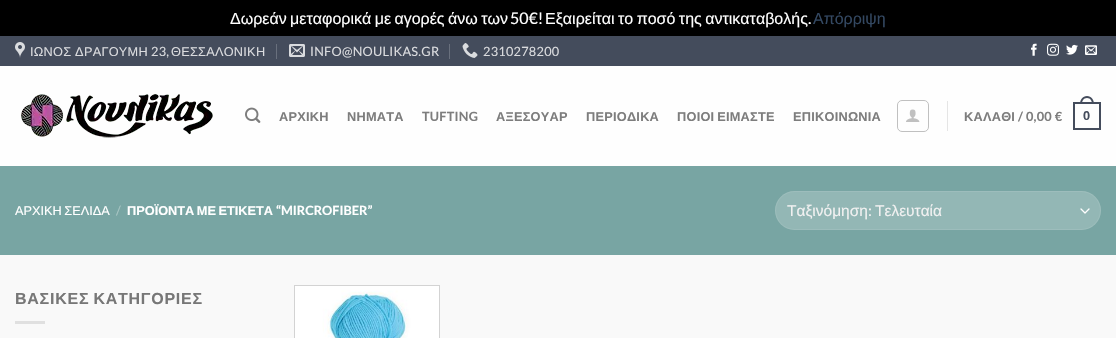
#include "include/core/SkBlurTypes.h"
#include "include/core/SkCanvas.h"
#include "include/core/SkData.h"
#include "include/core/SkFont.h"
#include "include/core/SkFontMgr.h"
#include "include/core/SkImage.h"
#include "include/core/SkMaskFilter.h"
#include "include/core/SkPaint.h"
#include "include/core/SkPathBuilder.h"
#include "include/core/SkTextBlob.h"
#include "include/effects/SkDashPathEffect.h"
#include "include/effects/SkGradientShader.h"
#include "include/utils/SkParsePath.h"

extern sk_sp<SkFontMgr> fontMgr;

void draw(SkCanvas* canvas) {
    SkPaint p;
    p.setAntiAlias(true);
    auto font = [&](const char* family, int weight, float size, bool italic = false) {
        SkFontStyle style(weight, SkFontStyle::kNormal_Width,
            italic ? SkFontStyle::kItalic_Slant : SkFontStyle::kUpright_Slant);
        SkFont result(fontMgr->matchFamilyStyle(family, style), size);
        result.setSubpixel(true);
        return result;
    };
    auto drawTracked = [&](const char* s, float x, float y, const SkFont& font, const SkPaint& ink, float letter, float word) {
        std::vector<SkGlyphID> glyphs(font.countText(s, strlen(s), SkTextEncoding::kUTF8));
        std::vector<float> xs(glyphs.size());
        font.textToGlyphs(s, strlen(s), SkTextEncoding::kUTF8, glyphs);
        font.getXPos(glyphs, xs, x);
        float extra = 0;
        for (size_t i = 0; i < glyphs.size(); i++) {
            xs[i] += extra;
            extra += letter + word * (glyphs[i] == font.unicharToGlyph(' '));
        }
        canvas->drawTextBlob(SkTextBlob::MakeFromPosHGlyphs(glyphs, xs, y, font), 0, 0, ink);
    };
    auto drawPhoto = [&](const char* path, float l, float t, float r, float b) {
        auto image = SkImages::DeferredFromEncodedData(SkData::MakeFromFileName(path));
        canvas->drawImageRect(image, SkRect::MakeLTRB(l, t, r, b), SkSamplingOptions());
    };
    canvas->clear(0xFF000000);
    auto font1 = font("Liberation Sans", 400, 16);
    p.setColor(0xFFFFFFFF);
    drawTracked("Δωρεάν μεταφορικά με αγορές άνω των", 230, 24, font1, p, 0, -1);
    auto font2 = font("Lato", 400, 16);
    canvas->drawString("50€!", 510, 24, font2, p);
    drawTracked("Εξαιρείται το ποσό της αντικαταβολής", 545, 24, font1, p, 0, -1);
    canvas->drawString(".", 808, 24, font2, p);
    p.setColor(0xFF334862);
    canvas->drawString("Απόρριψη", 813, 24, font1, p);
    p.setColor(0xFFF9F9F9);
    canvas->drawRect(SkRect::MakeLTRB(0, 255, 1116, 338), p);
    p.setColor(0xFF444C5C);
    canvas->drawRect(SkRect::MakeLTRB(0, 36, 1116, 66), p);
    drawPhoto("media/1.png", 15, 42, 25, 58);
    auto font3 = font("Liberation Sans", 400, 12.75f);
    p.setColor(0xFFDADBDE);
    drawTracked("ΙΩΝΟΣ ΔΡΑΓΟΥΜΗ", 30, 56, font3, p, 0.25f, 0);
    auto font4 = font("Lato", 400, 12.75f);
    drawTracked("23,", 151, 56, font4, p, 0.25f, 0);
    drawTracked("ΘΕΣΣΑΛΟΝΙΚΗ", 171, 56, font3, p, 0.25f, 0);
    p.setColor(0xFF69707D);
    canvas->drawRect(SkRect::MakeLTRB(276, 44, 277, 59), p);
    drawPhoto("media/2.png", 289, 44, 305, 57);
    p.setColor(0xFFDADBDE);
    drawTracked("INFO@NOULIKAS.GR", 310, 56, font4, p, 0.25f, 0);
    p.setColor(0xFF69707D);
    canvas->drawRect(SkRect::MakeLTRB(449, 44, 450, 59), p);
    drawPhoto("media/3.png", 462, 43, 478, 58);
    p.setColor(0xFFDADBDE);
    drawTracked("2310278200", 483, 56, font4, p, 0.25f, 0);
    drawPhoto("media/4.png", 1031, 43, 1037, 56);
    drawPhoto("media/5.png", 1047, 43, 1059, 56);
    drawPhoto("media/6.png", 1066, 44, 1078, 55);
    drawPhoto("media/7.png", 1085, 45, 1097, 55);
    p.setColor(0xFFFEFEFE);
    canvas->drawRect(SkRect::MakeLTRB(0, 66, 1116, 166), p);
    drawPhoto("media/8.png", 21, 94, 213, 138);
    drawPhoto("media/9.png", 245, 107, 261, 123);
    auto font5 = font("Liberation Sans", 700, 12.75f);
    p.setColor(0xFF7D7D7D);
    drawTracked("ΑΡΧΙΚΗ", 279, 121, font5, p, 0.25f, 0);
    drawTracked("ΝΗΜΑΤΑ", 347, 121, font5, p, 0.25f, 0);
    auto font6 = font("Lato", 700, 12.75f);
    drawTracked("TUFTING", 422, 121, font6, p, 0.25f, 0);
    drawTracked("ΑΞΕΣΟΥΑΡ", 496, 121, font5, p, 0.25f, 0);
    drawTracked("ΠΕΡΙΟΔΙΚΑ", 586, 121, font5, p, 0.25f, 0);
    drawTracked("ΠΟΙΟΙ ΕΙΜΑΣΤΕ", 677, 121, font5, p, 0.25f, -1);
    drawTracked("ΕΠΙΚΟΙΝΩΝΙΑ", 793, 121, font5, p, 0.25f, 0);
    p.setStyle(SkPaint::kStroke_Style);
    p.setStrokeWidth(1);
    p.setColor(0xFFC0C0C0);
    canvas->drawRoundRect(SkRect::MakeLTRB(897.5f, 100.5f, 928.5f, 131.5f), 4.5f, 4.5f, p);
    drawPhoto("media/10.png", 906, 109, 920, 122);
    p.setStyle(SkPaint::kFill_Style);
    p.setColor(0xFFE5E5E5);
    canvas->drawRect(SkRect::MakeLTRB(947, 101, 948, 131), p);
    p.setColor(0xFF7D7D7D);
    drawTracked("ΚΑΛΑΘΙ", 964, 121, font5, p, 0.25f, 0);
    drawTracked("/ 0,00 €", 1018, 121, font6, p, 0.25f, 0);
    p.setStyle(SkPaint::kStroke_Style);
    p.setStrokeWidth(2);
    p.setColor(0xFF444C5C);
    canvas->drawRect(SkRect::MakeLTRB(1074, 103, 1100, 129), p);
    p.setStyle(SkPaint::kFill_Style);
    canvas->drawPath(SkPathBuilder(SkPathFillType::kEvenOdd).moveTo(1087, 96).cubicTo(1091.5f, 96, 1094, 100, 1094, 104).lineTo(1080, 104).cubicTo(1080, 100, 1082.5f, 96, 1087, 96).close().moveTo(1087, 98).cubicTo(1090.5f, 98, 1092, 101, 1092, 104).lineTo(1082, 104).cubicTo(1082, 101, 1083.5f, 98, 1087, 98).close().detach(), p);
    drawTracked("0", 1083, 120, font5, p, 0.25f, 0);
    p.setColor(0xFF78A5A3);
    canvas->drawRect(SkRect::MakeLTRB(0, 166, 1116, 255), p);
    p.setColor(0xFFFFFFFF);
    drawTracked("ΑΡΧΙΚΗ ΣΕΛΙΔΑ", 15, 215, font3, p, 0, -1);
    p.setColor(0xFFA7C5C3);
    canvas->drawString("/", 116, 215, font4, p);
    p.setColor(0xFFFFFFFF);
    drawTracked("ΠΡΟΪΟΝΤΑ ΜΕ ΕΤΙΚΕΤΑ", 127, 215, font5, p, 0, -1);
    canvas->drawString("“MIRCROFIBER”", 276, 215, font6, p);
    p.setColor(0xFF93B7B5);
    canvas->drawRoundRect(SkRect::MakeLTRB(775, 191, 1101, 230), 19.5f, 19.5f, p);
    p.setStyle(SkPaint::kStroke_Style);
    p.setStrokeWidth(1.3f);
    p.setStrokeCap(SkPaint::kRound_Cap);
    p.setStrokeJoin(SkPaint::kRound_Join);
    p.setColor(0xFFFFFFFF);
    canvas->drawPath(SkPathBuilder().moveTo(1081, 209).lineTo(1085, 213).lineTo(1089, 209).detach(), p);
    p.setStrokeWidth(1);
    p.setStrokeCap(SkPaint::kButt_Cap);
    p.setStrokeJoin(SkPaint::kMiter_Join);
    p.setColor(0x17FFFFFF);
    canvas->drawRoundRect(SkRect::MakeLTRB(775.5f, 191.5f, 1100.5f, 229.5f), 19, 19, p);
    auto font7 = font("Liberation Sans", 400, 15.5f);
    p.setStyle(SkPaint::kFill_Style);
    p.setColor(0xFFF1F1F1);
    canvas->drawString("Ταξινόμηση", 787, 216, font7, p);
    auto font8 = font("Lato", 400, 15.5f);
    canvas->drawString(":", 868, 216, font8, p);
    canvas->drawString("Τελευταία", 875, 216, font7, p);
    auto font9 = font("Liberation Sans", 700, 16);
    p.setColor(0xFF777777);
    drawTracked("ΒΑΣΙΚΕΣ ΚΑΤΗΓΟΡΙΕΣ", 15, 304, font9, p, 0.75f, -1);
    p.setColor(0xFFE0E0E0);
    canvas->drawRect(SkRect::MakeLTRB(15, 321, 45, 324), p);
    p.setStyle(SkPaint::kStroke_Style);
    p.setColor(0xFFD3D3D3);
    canvas->drawRect(SkRect::MakeLTRB(294.5f, 285.5f, 439.5f, 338.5f), p);
    drawPhoto("media/11.png", 295, 286, 439, 338);
}
